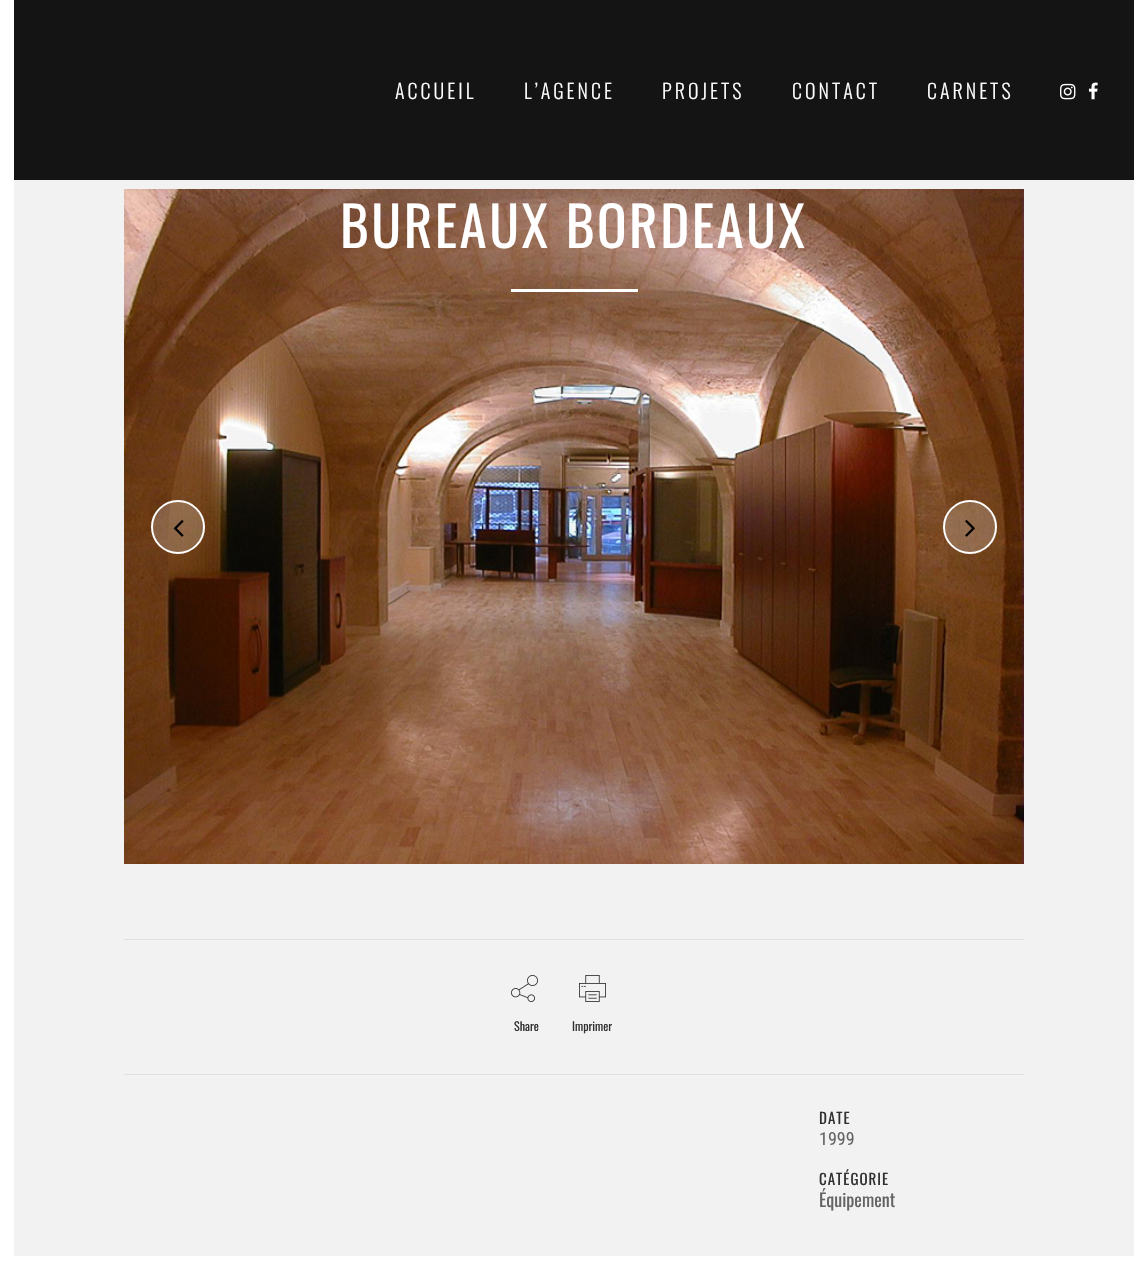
#include "include/core/SkBlurTypes.h"
#include "include/core/SkCanvas.h"
#include "include/core/SkData.h"
#include "include/core/SkFont.h"
#include "include/core/SkFontMgr.h"
#include "include/core/SkImage.h"
#include "include/core/SkMaskFilter.h"
#include "include/core/SkPaint.h"
#include "include/core/SkPathBuilder.h"
#include "include/core/SkTextBlob.h"
#include "include/effects/SkDashPathEffect.h"
#include "include/effects/SkGradientShader.h"
#include "include/utils/SkParsePath.h"

extern sk_sp<SkFontMgr> fontMgr;

void draw(SkCanvas* canvas) {
    SkPaint p;
    p.setAntiAlias(true);
    auto font = [&](const char* family, int weight, float size, bool italic = false) {
        SkFontStyle style(weight, SkFontStyle::kNormal_Width,
            italic ? SkFontStyle::kItalic_Slant : SkFontStyle::kUpright_Slant);
        SkFont result(fontMgr->matchFamilyStyle(family, style), size);
        result.setSubpixel(true);
        return result;
    };
    auto drawTracked = [&](const char* s, float x, float y, const SkFont& font, const SkPaint& ink, float letter, float word) {
        std::vector<SkGlyphID> glyphs(font.countText(s, strlen(s), SkTextEncoding::kUTF8));
        std::vector<float> xs(glyphs.size());
        font.textToGlyphs(s, strlen(s), SkTextEncoding::kUTF8, glyphs);
        font.getXPos(glyphs, xs, x);
        float extra = 0;
        for (size_t i = 0; i < glyphs.size(); i++) {
            xs[i] += extra;
            extra += letter + word * (glyphs[i] == font.unicharToGlyph(' '));
        }
        canvas->drawTextBlob(SkTextBlob::MakeFromPosHGlyphs(glyphs, xs, y, font), 0, 0, ink);
    };
    auto drawPhoto = [&](const char* path, float l, float t, float r, float b) {
        auto image = SkImages::DeferredFromEncodedData(SkData::MakeFromFileName(path));
        canvas->drawImageRect(image, SkRect::MakeLTRB(l, t, r, b), SkSamplingOptions());
    };
    canvas->clear(0xFFF2F2F2);
    p.setColor(0xFF141414);
    canvas->drawRect(SkRect::MakeLTRB(14, 0, 1134, 180), p);
    auto font1 = font("Oswald", 300, 20);
    p.setColor(0xFFFFFFFF);
    {
        const struct { const char* s; float x, y; } items[] = {
            {"ACCUEIL", 395, 99},
            {"L’AGENCE", 524, 99},
            {"PROJETS", 662, 99},
            {"CONTACT", 792, 99},
            {"CARNETS", 927, 99},
        };
        for (auto [s, x, y] : items) {
            drawTracked(s, x, y, font1, p, 3, 0);
        }
    }
    drawPhoto("media/1.png", 1060, 83, 1076, 100);
    drawPhoto("media/2.png", 1088, 82, 1098, 100);
    canvas->drawRect(SkRect::MakeLTRB(0, 0, 14, 1256), p);
    drawPhoto("media/3.png", 124, 189, 1024, 864);
    auto font2 = font("Oswald", 400, 55);
    drawTracked("BUREAUX BORDEAUX", 340, 248, font2, p, 2.5f, 0);
    canvas->drawRect(SkRect::MakeLTRB(511, 289, 638, 292), p);
    p.setColor(0x33FFFFFF);
    canvas->drawCircle(178, 527, 26, p);
    p.setStyle(SkPaint::kStroke_Style);
    p.setStrokeWidth(2);
    p.setColor(0xFFFFFFFF);
    canvas->drawCircle(178, 527, 26, p);
    drawPhoto("media/4.png", 173, 520, 184, 537);
    p.setStyle(SkPaint::kFill_Style);
    p.setColor(0x33FFFFFF);
    canvas->drawCircle(970, 527, 26, p);
    p.setStyle(SkPaint::kStroke_Style);
    p.setColor(0xFFFFFFFF);
    canvas->drawCircle(970, 527, 26, p);
    drawPhoto("media/5.png", 965, 520, 975, 537);
    p.setStyle(SkPaint::kFill_Style);
    p.setColor(0xFFE0E0E0);
    canvas->drawRect(SkRect::MakeLTRB(124, 939, 1024, 940), p);
    canvas->drawRect(SkRect::MakeLTRB(124, 1074, 1024, 1075), p);
    drawPhoto("media/6.png", 511, 975, 538, 1002);
    auto font3 = font("Oswald", 400, 12);
    p.setColor(0xFF303030);
    canvas->drawString("Share", 514, 1031, font3, p);
    drawPhoto("media/7.png", 579, 975, 606, 1002);
    canvas->drawString("Imprimer", 572, 1031, font3, p);
    auto font4 = font("Oswald", 400, 15);
    drawTracked("DATE", 819, 1124, font4, p, 1, 0);
    auto font5 = font("Roboto Condensed", 400, 18);
    p.setColor(0xFF646464);
    canvas->drawString("1999", 819, 1145, font5, p);
    p.setColor(0xFF303030);
    drawTracked("CATÉGORIE", 819, 1185, font4, p, 1, 0);
    auto font6 = font("Oswald", 400, 18);
    p.setColor(0xFF646464);
    canvas->drawString("Équipement", 819, 1207, font6, p);
    p.setColor(0xFFFFFFFF);
    canvas->drawRect(SkRect::MakeLTRB(1134, 0, 1148, 1256), p);
    canvas->drawRect(SkRect::MakeLTRB(0, 1256, 1148, 1270), p);
}
